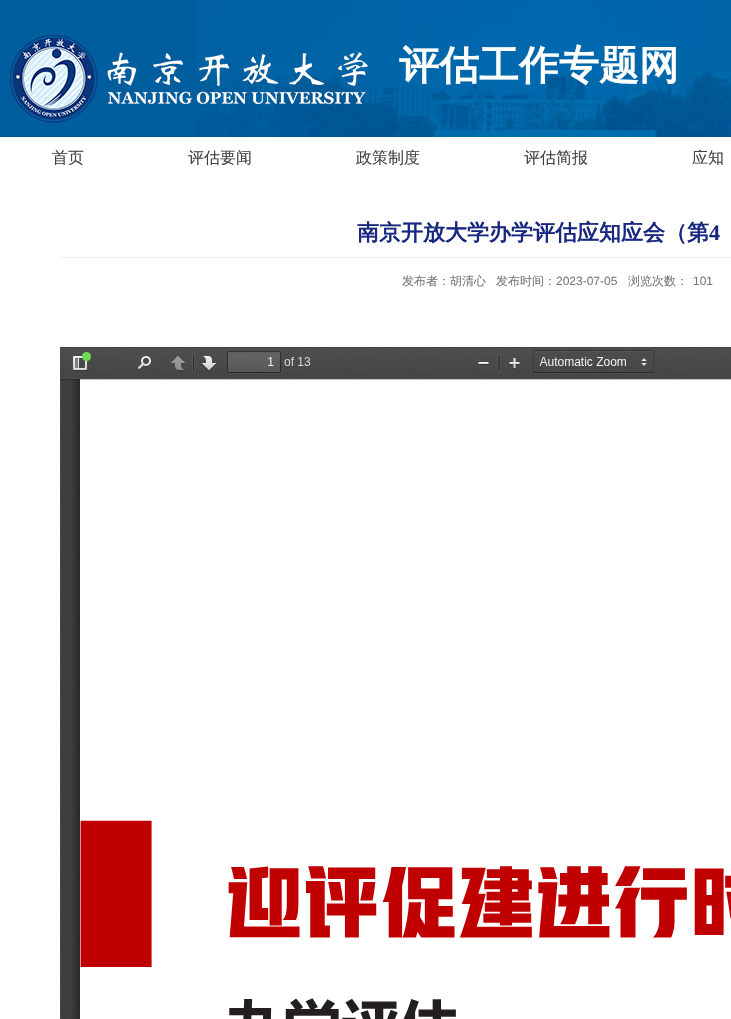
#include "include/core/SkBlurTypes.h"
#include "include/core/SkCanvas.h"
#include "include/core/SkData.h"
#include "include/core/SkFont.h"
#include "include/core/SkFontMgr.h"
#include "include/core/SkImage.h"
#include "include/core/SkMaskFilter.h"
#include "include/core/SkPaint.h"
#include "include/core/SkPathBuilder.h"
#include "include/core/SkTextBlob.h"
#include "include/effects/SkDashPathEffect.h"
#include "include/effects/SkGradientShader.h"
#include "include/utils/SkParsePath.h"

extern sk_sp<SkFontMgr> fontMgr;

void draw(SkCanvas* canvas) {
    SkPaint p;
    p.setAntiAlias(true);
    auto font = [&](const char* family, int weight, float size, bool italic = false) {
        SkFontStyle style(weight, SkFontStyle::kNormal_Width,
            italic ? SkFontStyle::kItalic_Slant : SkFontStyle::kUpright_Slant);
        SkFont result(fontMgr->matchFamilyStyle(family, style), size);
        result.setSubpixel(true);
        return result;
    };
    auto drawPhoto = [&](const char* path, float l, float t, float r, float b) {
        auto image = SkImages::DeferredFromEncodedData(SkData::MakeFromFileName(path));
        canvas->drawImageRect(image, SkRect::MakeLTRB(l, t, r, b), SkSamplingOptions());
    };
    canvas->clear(0xFF005E9E);
    drawPhoto("media/1.png", 195, 0, 731, 137);
    drawPhoto("media/2.png", 10, 35, 368, 123);
    auto font1 = font("WenQuanYi Zen Hei", 700, 40);
    p.setColor(0xFFFFFFFF);
    canvas->drawString("评估工作专题网", 399, 79, font1, p);
    canvas->drawRect(SkRect::MakeLTRB(0, 137, 731, 1019), p);
    auto font2 = font("WenQuanYi Zen Hei", 500, 16);
    p.setColor(0xFF434343);
    {
        const struct { const char* s; float x, y; } items[] = {
            {"首页", 52, 163},
            {"评估要闻", 188, 163},
            {"政策制度", 356, 163},
            {"评估简报", 524, 163},
            {"应知", 692, 163},
        };
        for (auto [s, x, y] : items) {
            canvas->drawString(s, x, y, font2, p);
        }
    }
    auto font3 = font("WenQuanYi Zen Hei", 700, 22);
    p.setColor(0xFF182880);
    canvas->drawString("南京开放大学办学评估应知应会（第", 357, 240, font3, p);
    auto font4 = font("Liberation Serif", 700, 22);
    canvas->drawString("4", 709, 240, font4, p);
    p.setColor(0xFFECECEC);
    canvas->drawRect(SkRect::MakeLTRB(60, 257, 731, 258), p);
    auto font5 = font("WenQuanYi Zen Hei", 500, 12);
    p.setColor(0xFF787878);
    canvas->drawString("发布者：胡清心", 402, 285, font5, p);
    canvas->drawString("发布时间：", 496, 285, font5, p);
    auto font6 = font("Liberation Sans", 400, 12);
    canvas->drawString("2023-07-05", 556, 285, font6, p);
    canvas->drawString("浏览次数：", 628, 285, font5, p);
    canvas->drawString("101", 693, 285, font6, p);
    drawPhoto("media/3.png", 60, 347, 731, 1019);
}
